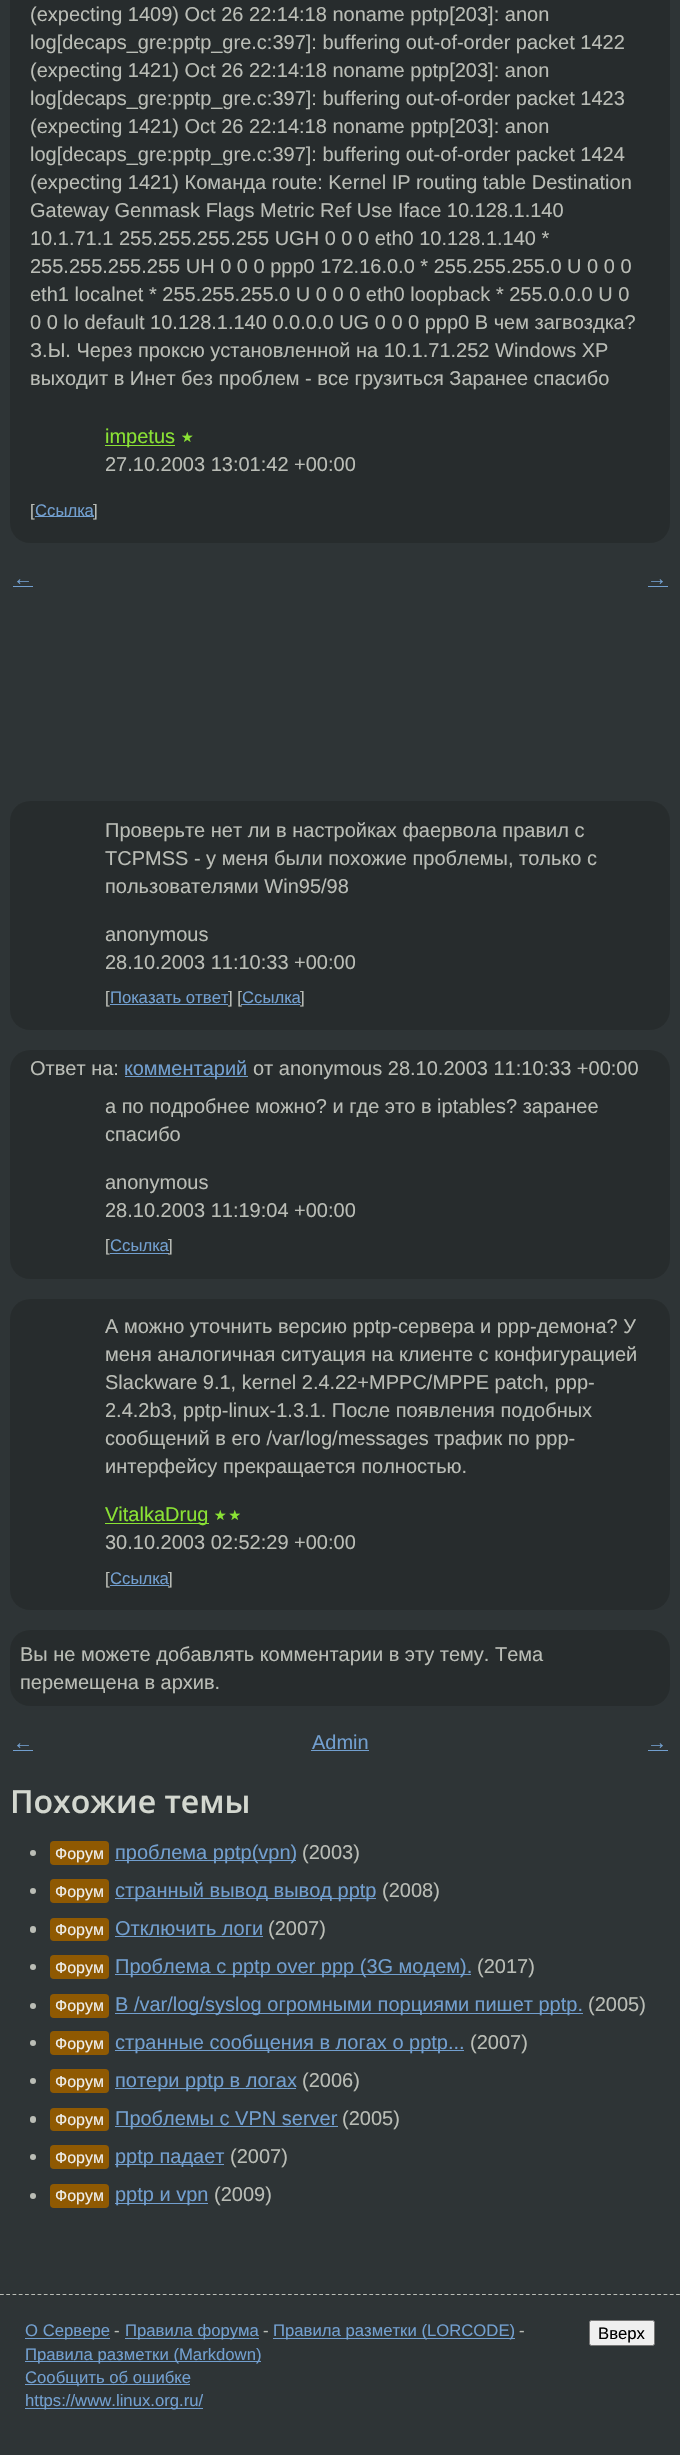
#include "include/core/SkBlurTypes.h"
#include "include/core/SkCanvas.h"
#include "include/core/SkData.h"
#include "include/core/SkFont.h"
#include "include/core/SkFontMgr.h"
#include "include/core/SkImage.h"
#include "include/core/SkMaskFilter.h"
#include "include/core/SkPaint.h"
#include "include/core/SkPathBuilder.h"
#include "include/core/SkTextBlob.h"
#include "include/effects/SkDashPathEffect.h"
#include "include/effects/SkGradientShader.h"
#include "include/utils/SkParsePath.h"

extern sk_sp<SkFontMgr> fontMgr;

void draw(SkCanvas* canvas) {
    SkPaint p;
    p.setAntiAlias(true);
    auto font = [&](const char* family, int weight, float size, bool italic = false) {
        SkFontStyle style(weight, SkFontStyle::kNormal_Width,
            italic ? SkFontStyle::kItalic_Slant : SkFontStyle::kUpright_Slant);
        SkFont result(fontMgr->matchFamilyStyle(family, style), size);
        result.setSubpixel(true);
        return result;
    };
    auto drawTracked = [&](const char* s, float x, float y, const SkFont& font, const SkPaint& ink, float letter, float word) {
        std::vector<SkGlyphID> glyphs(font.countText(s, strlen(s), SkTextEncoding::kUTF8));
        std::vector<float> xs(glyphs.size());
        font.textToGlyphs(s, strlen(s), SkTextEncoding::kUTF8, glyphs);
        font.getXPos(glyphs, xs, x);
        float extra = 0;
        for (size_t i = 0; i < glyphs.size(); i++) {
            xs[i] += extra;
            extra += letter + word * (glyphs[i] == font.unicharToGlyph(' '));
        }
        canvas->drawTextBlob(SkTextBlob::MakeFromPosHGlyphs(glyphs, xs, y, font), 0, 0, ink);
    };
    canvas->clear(0xFF2E3436);
    p.setColor(0xFF272C2D);
    canvas->drawRoundRect(SkRect::MakeLTRB(10, -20, 670, 543), 20, 20, p);
    auto font1 = font("Liberation Sans", 400, 20);
    p.setColor(0xFFBABDB6);
    {
        const struct { const char* s; float x, y; } items[] = {
            {"(expecting 1409) Oct 26 22:14:18 noname pptp[203]: anon", 30, 21},
            {"log[decaps_gre:pptp_gre.c:397]: buffering out-of-order packet 1422", 30, 49},
            {"(expecting 1421) Oct 26 22:14:18 noname pptp[203]: anon", 30, 77},
            {"log[decaps_gre:pptp_gre.c:397]: buffering out-of-order packet 1423", 30, 105},
            {"(expecting 1421) Oct 26 22:14:18 noname pptp[203]: anon", 30, 133},
            {"log[decaps_gre:pptp_gre.c:397]: buffering out-of-order packet 1424", 30, 161},
            {"(expecting 1421) Команда route: Kernel IP routing table Destination", 30, 189},
            {"Gateway Genmask Flags Metric Ref Use Iface 10.128.1.140", 30, 217},
            {"10.1.71.1 255.255.255.255 UGH 0 0 0 eth0 10.128.1.140 *", 30, 245},
            {"255.255.255.255 UH 0 0 0 ppp0 172.16.0.0 * 255.255.255.0 U 0 0 0", 30, 273},
            {"eth1 localnet * 255.255.255.0 U 0 0 0 eth0 loopback * 255.0.0.0 U 0", 30, 301},
            {"0 0 lo default 10.128.1.140 0.0.0.0 UG 0 0 0 ppp0 В чем загвоздка?", 30, 329},
            {"З.Ы. Через проксю установленной на 10.1.71.252 Windows XP", 30, 357},
            {"выходит в Инет без проблем - все грузиться Заранее спасибо", 30, 385},
        };
        for (auto [s, x, y] : items) {
            canvas->drawString(s, x, y, font1, p);
        }
    }
    p.setColor(0xFF8AE234);
    canvas->drawRect(SkRect::MakeLTRB(105, 445, 175, 446), p);
    canvas->drawString("impetus", 105, 443, font1, p);
    auto font2 = font("DejaVu Sans", 400, 14);
    drawTracked("★", 181, 442, font2, p, 2, 0);
    p.setColor(0xFFBABDB6);
    canvas->drawString("27.10.2003 13:01:42 +00:00", 105, 471, font1, p);
    auto font3 = font("Liberation Sans", 400, 16.7f);
    canvas->drawString("[", 30, 516, font3, p);
    p.setColor(0xFF729FCF);
    canvas->drawRect(SkRect::MakeLTRB(35, 516, 94, 517), p);
    canvas->drawString("Ссылка", 35, 516, font3, p);
    p.setColor(0xFFBABDB6);
    canvas->drawString("]", 93, 516, font3, p);
    p.setColor(0xFF729FCF);
    canvas->drawString("←", 13, 585, font1, p);
    canvas->drawRect(SkRect::MakeLTRB(13, 586, 33, 587), p);
    canvas->drawString("→", 647, 585, font1, p);
    canvas->drawRect(SkRect::MakeLTRB(648, 586, 668, 587), p);
    p.setColor(0xFF272C2D);
    canvas->drawRoundRect(SkRect::MakeLTRB(10, 801, 670, 1030), 20, 20, p);
    p.setColor(0xFFBABDB6);
    {
        const struct { const char* s; float x, y; } items[] = {
            {"Проверьте нет ли в настройках фаервола правил с", 105, 837},
            {"TCPMSS - у меня были похожие проблемы, только с", 105, 865},
            {"пользователями Win95/98", 105, 893},
            {"anonymous", 105, 941},
            {"28.10.2003 11:10:33 +00:00", 105, 969},
        };
        for (auto [s, x, y] : items) {
            canvas->drawString(s, x, y, font1, p);
        }
    }
    canvas->drawString("[", 105, 1003, font3, p);
    p.setColor(0xFF729FCF);
    canvas->drawRect(SkRect::MakeLTRB(110, 1004, 228, 1005), p);
    canvas->drawString("Показать ответ", 110, 1003, font3, p);
    p.setColor(0xFFBABDB6);
    canvas->drawString("] [", 228, 1003, font3, p);
    p.setColor(0xFF729FCF);
    canvas->drawRect(SkRect::MakeLTRB(241, 1004, 300, 1005), p);
    canvas->drawString("Ссылка", 242, 1003, font3, p);
    p.setColor(0xFFBABDB6);
    canvas->drawString("]", 300, 1003, font3, p);
    p.setColor(0xFF272C2D);
    canvas->drawRoundRect(SkRect::MakeLTRB(10, 1050, 670, 1279), 20, 20, p);
    p.setColor(0xFFBABDB6);
    canvas->drawString("Ответ на:", 30, 1075, font1, p);
    p.setColor(0xFF729FCF);
    canvas->drawRect(SkRect::MakeLTRB(125, 1076, 248, 1077), p);
    canvas->drawString("комментарий", 124, 1075, font1, p);
    p.setColor(0xFFBABDB6);
    {
        const struct { const char* s; float x, y; } items[] = {
            {"от anonymous 28.10.2003 11:10:33 +00:00", 253, 1075},
            {"а по подробнее можно? и где это в iptables? заранее", 105, 1113},
            {"спасибо", 105, 1141},
            {"anonymous", 105, 1189},
            {"28.10.2003 11:19:04 +00:00", 105, 1217},
        };
        for (auto [s, x, y] : items) {
            canvas->drawString(s, x, y, font1, p);
        }
    }
    canvas->drawString("[", 105, 1251, font3, p);
    p.setColor(0xFF729FCF);
    canvas->drawRect(SkRect::MakeLTRB(110, 1253, 169, 1254), p);
    canvas->drawString("Ссылка", 110, 1251, font3, p);
    p.setColor(0xFFBABDB6);
    canvas->drawString("]", 168, 1251, font3, p);
    p.setColor(0xFF272C2D);
    canvas->drawRoundRect(SkRect::MakeLTRB(10, 1299, 670, 1610), 20, 20, p);
    p.setColor(0xFFBABDB6);
    {
        const struct { const char* s; float x, y; } items[] = {
            {"А можно уточнить версию pptp-сервера и ppp-демона? У", 105, 1333},
            {"меня аналогичная ситуация на клиенте с конфигурацией", 105, 1361},
            {"Slackware 9.1, kernel 2.4.22+MPPC/MPPE patch, ppp-", 105, 1389},
            {"2.4.2b3, pptp-linux-1.3.1. После появления подобных", 105, 1417},
            {"сообщений в его /var/log/messages трафик по ppp-", 105, 1445},
            {"интерфейсу прекращается полностью.", 105, 1473},
        };
        for (auto [s, x, y] : items) {
            canvas->drawString(s, x, y, font1, p);
        }
    }
    p.setColor(0xFF8AE234);
    canvas->drawRect(SkRect::MakeLTRB(105, 1523, 209, 1524), p);
    canvas->drawString("VitalkaDrug", 105, 1521, font1, p);
    drawTracked("★★", 214, 1520, font2, p, 2, 0);
    p.setColor(0xFFBABDB6);
    canvas->drawString("30.10.2003 02:52:29 +00:00", 105, 1549, font1, p);
    canvas->drawString("[", 105, 1584, font3, p);
    p.setColor(0xFF729FCF);
    canvas->drawRect(SkRect::MakeLTRB(110, 1585, 169, 1586), p);
    canvas->drawString("Ссылка", 110, 1584, font3, p);
    p.setColor(0xFFBABDB6);
    canvas->drawString("]", 168, 1584, font3, p);
    p.setColor(0xFF272C2D);
    canvas->drawRoundRect(SkRect::MakeLTRB(10, 1630, 670, 1706), 20, 20, p);
    p.setColor(0xFFBABDB6);
    canvas->drawString("Вы не можете добавлять комментарии в эту тему. Тема", 20, 1661, font1, p);
    canvas->drawString("перемещена в архив.", 20, 1689, font1, p);
    p.setColor(0xFF729FCF);
    canvas->drawString("←", 13, 1749, font1, p);
    canvas->drawRect(SkRect::MakeLTRB(13, 1750, 33, 1751), p);
    canvas->drawString("Admin", 312, 1749, font1, p);
    canvas->drawRect(SkRect::MakeLTRB(311, 1750, 369, 1751), p);
    canvas->drawString("→", 647, 1749, font1, p);
    canvas->drawRect(SkRect::MakeLTRB(648, 1750, 668, 1751), p);
    auto font4 = font("Open Sans", 600, 32);
    p.setColor(0xFFD3D7CF);
    canvas->drawString("Похожие темы", 10, 1813, font4, p);
    p.setColor(0xFFBABDB6);
    canvas->drawCircle(33, 1853, 3, p);
    p.setColor(0xFF8F5902);
    canvas->drawRoundRect(SkRect::MakeLTRB(50, 1841, 109, 1865), 4, 4, p);
    auto font5 = font("Liberation Sans", 400, 16);
    p.setColor(0xFFEEEEEC);
    canvas->drawString("Форум", 55, 1859, font5, p);
    p.setColor(0xFF729FCF);
    canvas->drawRect(SkRect::MakeLTRB(115, 1860, 296, 1861), p);
    canvas->drawString("проблема pptp(vpn)", 115, 1859, font1, p);
    p.setColor(0xFFBABDB6);
    canvas->drawString("(2003)", 302, 1859, font1, p);
    canvas->drawCircle(33, 1891, 3, p);
    p.setColor(0xFF8F5902);
    canvas->drawRoundRect(SkRect::MakeLTRB(50, 1879, 109, 1903), 4, 4, p);
    p.setColor(0xFFEEEEEC);
    canvas->drawString("Форум", 55, 1897, font5, p);
    p.setColor(0xFF729FCF);
    canvas->drawRect(SkRect::MakeLTRB(115, 1898, 376, 1899), p);
    canvas->drawString("странный вывод вывод pptp", 115, 1897, font1, p);
    p.setColor(0xFFBABDB6);
    canvas->drawString("(2008)", 382, 1897, font1, p);
    canvas->drawRoundRect(SkRect::MakeLTRB(30, 1926, 36, 1933), 3, 3, p);
    p.setColor(0xFF8F5902);
    canvas->drawRoundRect(SkRect::MakeLTRB(50, 1918, 109, 1941), 4, 4, p);
    p.setColor(0xFFEEEEEC);
    canvas->drawString("Форум", 55, 1935, font5, p);
    p.setColor(0xFF729FCF);
    canvas->drawString("Отключить логи", 115, 1935, font1, p);
    canvas->drawRect(SkRect::MakeLTRB(115, 1936, 263, 1937), p);
    p.setColor(0xFFBABDB6);
    canvas->drawString("(2007)", 268, 1935, font1, p);
    canvas->drawCircle(33, 1967, 3, p);
    p.setColor(0xFF8F5902);
    canvas->drawRoundRect(SkRect::MakeLTRB(50, 1955, 109, 1979), 4, 4, p);
    p.setColor(0xFFEEEEEC);
    canvas->drawString("Форум", 55, 1973, font5, p);
    p.setColor(0xFF729FCF);
    canvas->drawRect(SkRect::MakeLTRB(115, 1974, 471, 1975), p);
    canvas->drawString("Проблема с pptp over ppp (3G модем).", 115, 1973, font1, p);
    p.setColor(0xFFBABDB6);
    canvas->drawString("(2017)", 477, 1973, font1, p);
    canvas->drawCircle(33, 2006, 3, p);
    p.setColor(0xFF8F5902);
    canvas->drawRoundRect(SkRect::MakeLTRB(50, 1994, 109, 2018), 4, 4, p);
    p.setColor(0xFFEEEEEC);
    canvas->drawString("Форум", 55, 2011, font5, p);
    p.setColor(0xFF729FCF);
    canvas->drawRect(SkRect::MakeLTRB(115, 2013, 583, 2014), p);
    canvas->drawString("В /var/log/syslog огромными порциями пишет pptp.", 115, 2011, font1, p);
    p.setColor(0xFFBABDB6);
    canvas->drawString("(2005)", 588, 2011, font1, p);
    canvas->drawCircle(33, 2043, 3, p);
    p.setColor(0xFF8F5902);
    canvas->drawRoundRect(SkRect::MakeLTRB(50, 2031, 109, 2055), 4, 4, p);
    p.setColor(0xFFEEEEEC);
    canvas->drawString("Форум", 55, 2049, font5, p);
    p.setColor(0xFF729FCF);
    canvas->drawRect(SkRect::MakeLTRB(115, 2050, 464, 2051), p);
    canvas->drawString("странные сообщения в логах о pptp...", 115, 2049, font1, p);
    p.setColor(0xFFBABDB6);
    canvas->drawString("(2007)", 470, 2049, font1, p);
    canvas->drawCircle(33, 2081, 3, p);
    p.setColor(0xFF8F5902);
    canvas->drawRoundRect(SkRect::MakeLTRB(50, 2069, 109, 2093), 4, 4, p);
    p.setColor(0xFFEEEEEC);
    canvas->drawString("Форум", 55, 2087, font5, p);
    p.setColor(0xFF729FCF);
    canvas->drawRect(SkRect::MakeLTRB(115, 2088, 296, 2089), p);
    canvas->drawString("потери pptp в логах", 115, 2087, font1, p);
    p.setColor(0xFFBABDB6);
    canvas->drawString("(2006)", 302, 2087, font1, p);
    canvas->drawRoundRect(SkRect::MakeLTRB(30, 2116, 36, 2123), 3, 3, p);
    p.setColor(0xFF8F5902);
    canvas->drawRoundRect(SkRect::MakeLTRB(50, 2108, 109, 2131), 4, 4, p);
    p.setColor(0xFFEEEEEC);
    canvas->drawString("Форум", 55, 2125, font5, p);
    p.setColor(0xFF729FCF);
    canvas->drawRect(SkRect::MakeLTRB(115, 2126, 338, 2127), p);
    canvas->drawString("Проблемы с VPN server", 115, 2125, font1, p);
    p.setColor(0xFFBABDB6);
    canvas->drawString("(2005)", 342, 2125, font1, p);
    canvas->drawCircle(33, 2157, 3, p);
    p.setColor(0xFF8F5902);
    canvas->drawRoundRect(SkRect::MakeLTRB(50, 2145, 109, 2169), 4, 4, p);
    p.setColor(0xFFEEEEEC);
    canvas->drawString("Форум", 55, 2163, font5, p);
    p.setColor(0xFF729FCF);
    canvas->drawRect(SkRect::MakeLTRB(115, 2164, 224, 2165), p);
    canvas->drawString("pptp падает", 115, 2163, font1, p);
    p.setColor(0xFFBABDB6);
    canvas->drawString("(2007)", 230, 2163, font1, p);
    canvas->drawCircle(33, 2196, 3, p);
    p.setColor(0xFF8F5902);
    canvas->drawRoundRect(SkRect::MakeLTRB(50, 2184, 109, 2208), 4, 4, p);
    p.setColor(0xFFEEEEEC);
    canvas->drawString("Форум", 55, 2201, font5, p);
    p.setColor(0xFF729FCF);
    canvas->drawRect(SkRect::MakeLTRB(115, 2203, 208, 2204), p);
    canvas->drawString("pptp и vpn", 115, 2201, font1, p);
    p.setColor(0xFFBABDB6);
    canvas->drawString("(2009)", 214, 2201, font1, p);
    p.setStyle(SkPaint::kStroke_Style);
    p.setStrokeWidth(1.2f);
    p.setPathEffect(SkDashPathEffect::Make({{3.75f, 2.51f}}, 0));
    canvas->drawPath(SkPathBuilder().moveTo(0, 2294.5f).lineTo(680, 2294.5f).detach(), p);
    p.setPathEffect(nullptr);
    p.setStyle(SkPaint::kFill_Style);
    p.setColor(0xFF729FCF);
    canvas->drawRect(SkRect::MakeLTRB(25, 2338, 110, 2339), p);
    canvas->drawString("О Сервере", 25, 2336, font3, p);
    p.setColor(0xFFBABDB6);
    canvas->drawString("-", 114, 2336, font3, p);
    p.setColor(0xFF729FCF);
    canvas->drawRect(SkRect::MakeLTRB(125, 2338, 259, 2339), p);
    canvas->drawString("Правила форума", 125, 2336, font3, p);
    p.setColor(0xFFBABDB6);
    canvas->drawString("-", 263, 2336, font3, p);
    p.setColor(0xFF729FCF);
    canvas->drawRect(SkRect::MakeLTRB(273, 2338, 515, 2339), p);
    canvas->drawString("Правила разметки (LORCODE)", 273, 2336, font3, p);
    p.setColor(0xFFBABDB6);
    canvas->drawString("-", 519, 2336, font3, p);
    p.setColor(0xFF729FCF);
    canvas->drawRect(SkRect::MakeLTRB(25, 2361, 261, 2362), p);
    canvas->drawString("Правила разметки (Markdown)", 25, 2360, font3, p);
    canvas->drawRect(SkRect::MakeLTRB(25, 2384, 190, 2385), p);
    canvas->drawString("Сообщить об ошибке", 25, 2383, font3, p);
    canvas->drawRect(SkRect::MakeLTRB(25, 2408, 203, 2409), p);
    canvas->drawString("https://www.linux.org.ru/", 25, 2406, font3, p);
    p.setColor(0xFFEFEFEF);
    canvas->drawRoundRect(SkRect::MakeLTRB(589.5f, 2320.5f, 654.5f, 2345.5f), 2, 2, p);
    p.setStyle(SkPaint::kStroke_Style);
    p.setStrokeWidth(1);
    p.setColor(0xFF767676);
    canvas->drawRoundRect(SkRect::MakeLTRB(589.5f, 2320.5f, 654.5f, 2345.5f), 2, 2, p);
    p.setStyle(SkPaint::kFill_Style);
    p.setColor(0xFF000000);
    canvas->drawString("Вверх", 598, 2339, font3, p);
}
